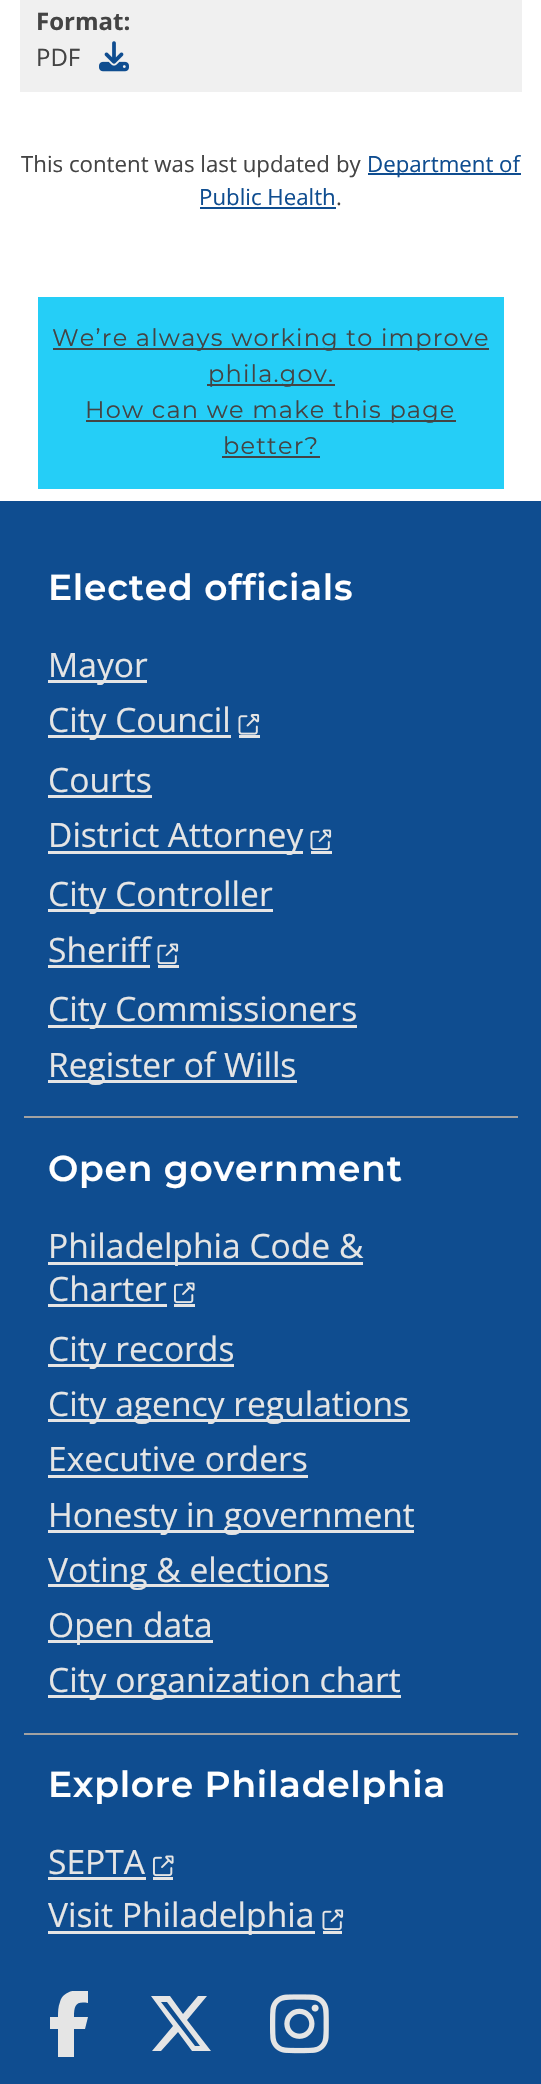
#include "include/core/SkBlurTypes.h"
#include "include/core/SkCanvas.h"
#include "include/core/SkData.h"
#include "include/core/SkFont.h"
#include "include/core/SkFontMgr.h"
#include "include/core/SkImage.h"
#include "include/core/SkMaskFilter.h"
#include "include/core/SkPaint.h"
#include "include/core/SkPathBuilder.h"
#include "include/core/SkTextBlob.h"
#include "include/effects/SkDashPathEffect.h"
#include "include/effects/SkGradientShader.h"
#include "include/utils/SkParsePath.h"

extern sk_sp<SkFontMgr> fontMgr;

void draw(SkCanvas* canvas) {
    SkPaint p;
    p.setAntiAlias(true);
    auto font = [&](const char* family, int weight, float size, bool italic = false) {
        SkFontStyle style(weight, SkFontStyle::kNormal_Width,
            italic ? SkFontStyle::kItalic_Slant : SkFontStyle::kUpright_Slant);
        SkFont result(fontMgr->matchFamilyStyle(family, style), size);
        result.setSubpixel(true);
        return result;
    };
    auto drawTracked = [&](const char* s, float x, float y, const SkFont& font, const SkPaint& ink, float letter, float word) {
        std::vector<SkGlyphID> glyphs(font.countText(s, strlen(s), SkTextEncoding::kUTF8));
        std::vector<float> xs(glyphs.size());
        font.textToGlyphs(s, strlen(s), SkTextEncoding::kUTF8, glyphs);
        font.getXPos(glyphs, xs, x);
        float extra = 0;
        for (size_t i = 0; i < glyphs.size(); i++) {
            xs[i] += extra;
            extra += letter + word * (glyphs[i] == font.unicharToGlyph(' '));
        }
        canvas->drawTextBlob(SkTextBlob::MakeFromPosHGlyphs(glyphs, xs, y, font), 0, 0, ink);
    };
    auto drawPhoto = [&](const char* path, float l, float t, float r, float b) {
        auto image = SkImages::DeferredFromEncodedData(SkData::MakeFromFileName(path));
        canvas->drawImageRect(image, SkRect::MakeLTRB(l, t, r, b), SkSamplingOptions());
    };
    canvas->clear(0xFFFFFFFF);
    p.setColor(0xFFF0F0F0);
    canvas->drawRect(SkRect::MakeLTRB(20, 0, 522, 92), p);
    auto font1 = font("Open Sans", 700, 24);
    p.setColor(0xFF444444);
    canvas->drawString("Format:", 36, 30, font1, p);
    auto font2 = font("Open Sans", 400, 24);
    canvas->drawString("PDF", 36, 66, font2, p);
    drawPhoto("media/1.png", 99, 41, 129, 72);
    auto font3 = font("Open Sans", 400, 22.25f);
    canvas->drawString("This content was last updated", 21, 172, font3, p);
    canvas->drawString("by", 336, 172, font3, p);
    p.setColor(0xFF0F4D90);
    canvas->drawRect(SkRect::MakeLTRB(368, 173, 521, 175), p);
    canvas->drawString("Department of", 367, 172, font3, p);
    canvas->drawString("Public Health", 199, 205, font3, p);
    canvas->drawRect(SkRect::MakeLTRB(200, 207, 336, 209), p);
    p.setColor(0xFF444444);
    canvas->drawString(".", 336, 205, font3, p);
    p.setColor(0xFF25CEF7);
    canvas->drawRect(SkRect::MakeLTRB(38, 297, 504, 489), p);
    p.setColor(0xFF444444);
    canvas->drawRect(SkRect::MakeLTRB(53, 348, 489, 350), p);
    auto font4 = font("Montserrat", 400, 24);
    drawTracked("We’re always working to improve", 52, 346, font4, p, 1.2f, 0);
    canvas->drawRect(SkRect::MakeLTRB(207, 384, 335, 386), p);
    drawTracked("phila.gov.", 208, 382, font4, p, 1.2f, 0);
    canvas->drawRect(SkRect::MakeLTRB(86, 420, 456, 422), p);
    drawTracked("How can we make this page", 85, 418, font4, p, 1.2f, 0);
    drawTracked("better?", 223, 454, font4, p, 1.2f, 0);
    {
        const struct { float l, t, r, b; SkColor color; } items[] = {
            {222, 456, 320, 458, 0xFF444444},
            {0, 501, 541, 2084, 0xFF0F4D90},
            {24, 1116, 518, 1118, 0xFFA2A2A2},
        };
        for (auto [l, t, r, b, color] : items) {
            p.setColor(color);
            canvas->drawRect(SkRect::MakeLTRB(l, t, r, b), p);
        }
    }
    auto font5 = font("Montserrat", 100, 36);
    p.setColor(0xFFFFFFFF);
    drawTracked("Elected officials", 48, 600, font5, p, 0.75f, 0);
    p.setColor(0xFFE5E5E5);
    canvas->drawRect(SkRect::MakeLTRB(48, 680, 147, 683), p);
    auto font6 = font("Open Sans", 400, 33.6f);
    canvas->drawString("Mayor", 48, 677, font6, p);
    canvas->drawRect(SkRect::MakeLTRB(48, 735, 231, 738), p);
    canvas->drawString("City Council", 48, 732, font6, p);
    canvas->drawRect(SkRect::MakeLTRB(239, 735, 260, 738), p);
    drawPhoto("media/2.png", 238, 714, 260, 735);
    canvas->drawString("Courts", 48, 792, font6, p);
    canvas->drawRect(SkRect::MakeLTRB(48, 795, 152, 798), p);
    canvas->drawRect(SkRect::MakeLTRB(48, 851, 303, 854), p);
    canvas->drawString("District Attorney", 48, 847, font6, p);
    canvas->drawRect(SkRect::MakeLTRB(311, 851, 332, 854), p);
    drawPhoto("media/3.png", 310, 829, 332, 851);
    canvas->drawRect(SkRect::MakeLTRB(48, 909, 273, 912), p);
    canvas->drawString("City Controller", 48, 906, font6, p);
    canvas->drawString("Sheriff", 48, 962, font6, p);
    canvas->drawRect(SkRect::MakeLTRB(48, 965, 150, 968), p);
    canvas->drawRect(SkRect::MakeLTRB(158, 965, 179, 968), p);
    drawPhoto("media/3.png", 157, 943, 179, 965);
    canvas->drawRect(SkRect::MakeLTRB(48, 1025, 357, 1028), p);
    canvas->drawString("City Commissioners", 48, 1021, font6, p);
    canvas->drawRect(SkRect::MakeLTRB(48, 1080, 297, 1083), p);
    canvas->drawString("Register of Wills", 48, 1077, font6, p);
    p.setColor(0xFFA2A2A2);
    canvas->drawRect(SkRect::MakeLTRB(24, 1733, 518, 1735), p);
    p.setColor(0xFFFFFFFF);
    drawTracked("Open government", 48, 1181, font5, p, 0.75f, 0);
    p.setColor(0xFFE5E5E5);
    canvas->drawRect(SkRect::MakeLTRB(48, 1262, 363, 1265), p);
    canvas->drawString("Philadelphia Code &", 48, 1258, font6, p);
    canvas->drawString("Charter", 48, 1301, font6, p);
    canvas->drawRect(SkRect::MakeLTRB(48, 1304, 167, 1307), p);
    canvas->drawRect(SkRect::MakeLTRB(174, 1304, 195, 1307), p);
    drawPhoto("media/4.png", 174, 1282, 195, 1304);
    canvas->drawRect(SkRect::MakeLTRB(48, 1364, 234, 1367), p);
    canvas->drawString("City records", 48, 1361, font6, p);
    canvas->drawRect(SkRect::MakeLTRB(48, 1419, 410, 1422), p);
    canvas->drawString("City agency regulations", 48, 1416, font6, p);
    canvas->drawString("Executive orders", 48, 1471, font6, p);
    canvas->drawRect(SkRect::MakeLTRB(48, 1475, 308, 1478), p);
    canvas->drawRect(SkRect::MakeLTRB(48, 1530, 414, 1533), p);
    canvas->drawString("Honesty in government", 48, 1527, font6, p);
    canvas->drawRect(SkRect::MakeLTRB(48, 1584, 329, 1587), p);
    canvas->drawString("Voting & elections", 48, 1582, font6, p);
    canvas->drawRect(SkRect::MakeLTRB(48, 1640, 213, 1643), p);
    canvas->drawString("Open data", 48, 1637, font6, p);
    canvas->drawRect(SkRect::MakeLTRB(48, 1695, 401, 1698), p);
    canvas->drawString("City organization chart", 48, 1692, font6, p);
    p.setColor(0xFFFFFFFF);
    drawTracked("Explore Philadelphia", 48, 1797, font5, p, 0.75f, 0);
    p.setColor(0xFFE5E5E5);
    canvas->drawString("SEPTA", 48, 1874, font6, p);
    canvas->drawRect(SkRect::MakeLTRB(48, 1877, 146, 1880), p);
    canvas->drawRect(SkRect::MakeLTRB(153, 1877, 173, 1880), p);
    drawPhoto("media/4.png", 153, 1855, 174, 1877);
    canvas->drawRect(SkRect::MakeLTRB(48, 1931, 315, 1934), p);
    canvas->drawString("Visit Philadelphia", 48, 1927, font6, p);
    canvas->drawRect(SkRect::MakeLTRB(323, 1931, 342, 1934), p);
    drawPhoto("media/3.png", 322, 1909, 344, 1931);
    canvas->save();
    canvas->clipRect(SkRect::MakeLTRB(48, 1991, 494, 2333));
    canvas->drawPath(SkPathBuilder().moveTo(58, 2029).lineTo(58, 2057).lineTo(58, 2029).lineTo(58, 2057).lineTo(74, 2057).lineTo(74, 2029).lineTo(85, 2029).lineTo(88, 2017).lineTo(74, 2017).cubicTo(74, 2005, 76, 2001, 88, 2003).lineTo(88, 1991).cubicTo(78, 1989, 63, 1990, 60, 2002).cubicTo(58, 2007, 58, 2012, 58, 2017).lineTo(50, 2017).lineTo(50, 2029).close().detach(), p);
    canvas->restore();
    canvas->drawPath(SkPathBuilder().moveTo(198, 1996).lineTo(207, 1996).lineTo(198, 1996).lineTo(207, 1996).lineTo(187, 2020).lineTo(211, 2051).lineTo(192, 2051).lineTo(178, 2032).lineTo(161, 2051).lineTo(152, 2051).lineTo(173, 2026).lineTo(151, 1996).lineTo(170, 1996).lineTo(183, 2014).close().moveTo(195, 2046).lineTo(200, 2046).lineTo(195, 2046).lineTo(200, 2046).lineTo(167, 2002).lineTo(161, 2002).close().detach(), p);
    drawPhoto("media/5.png", 270, 1994, 329, 2054);
}
